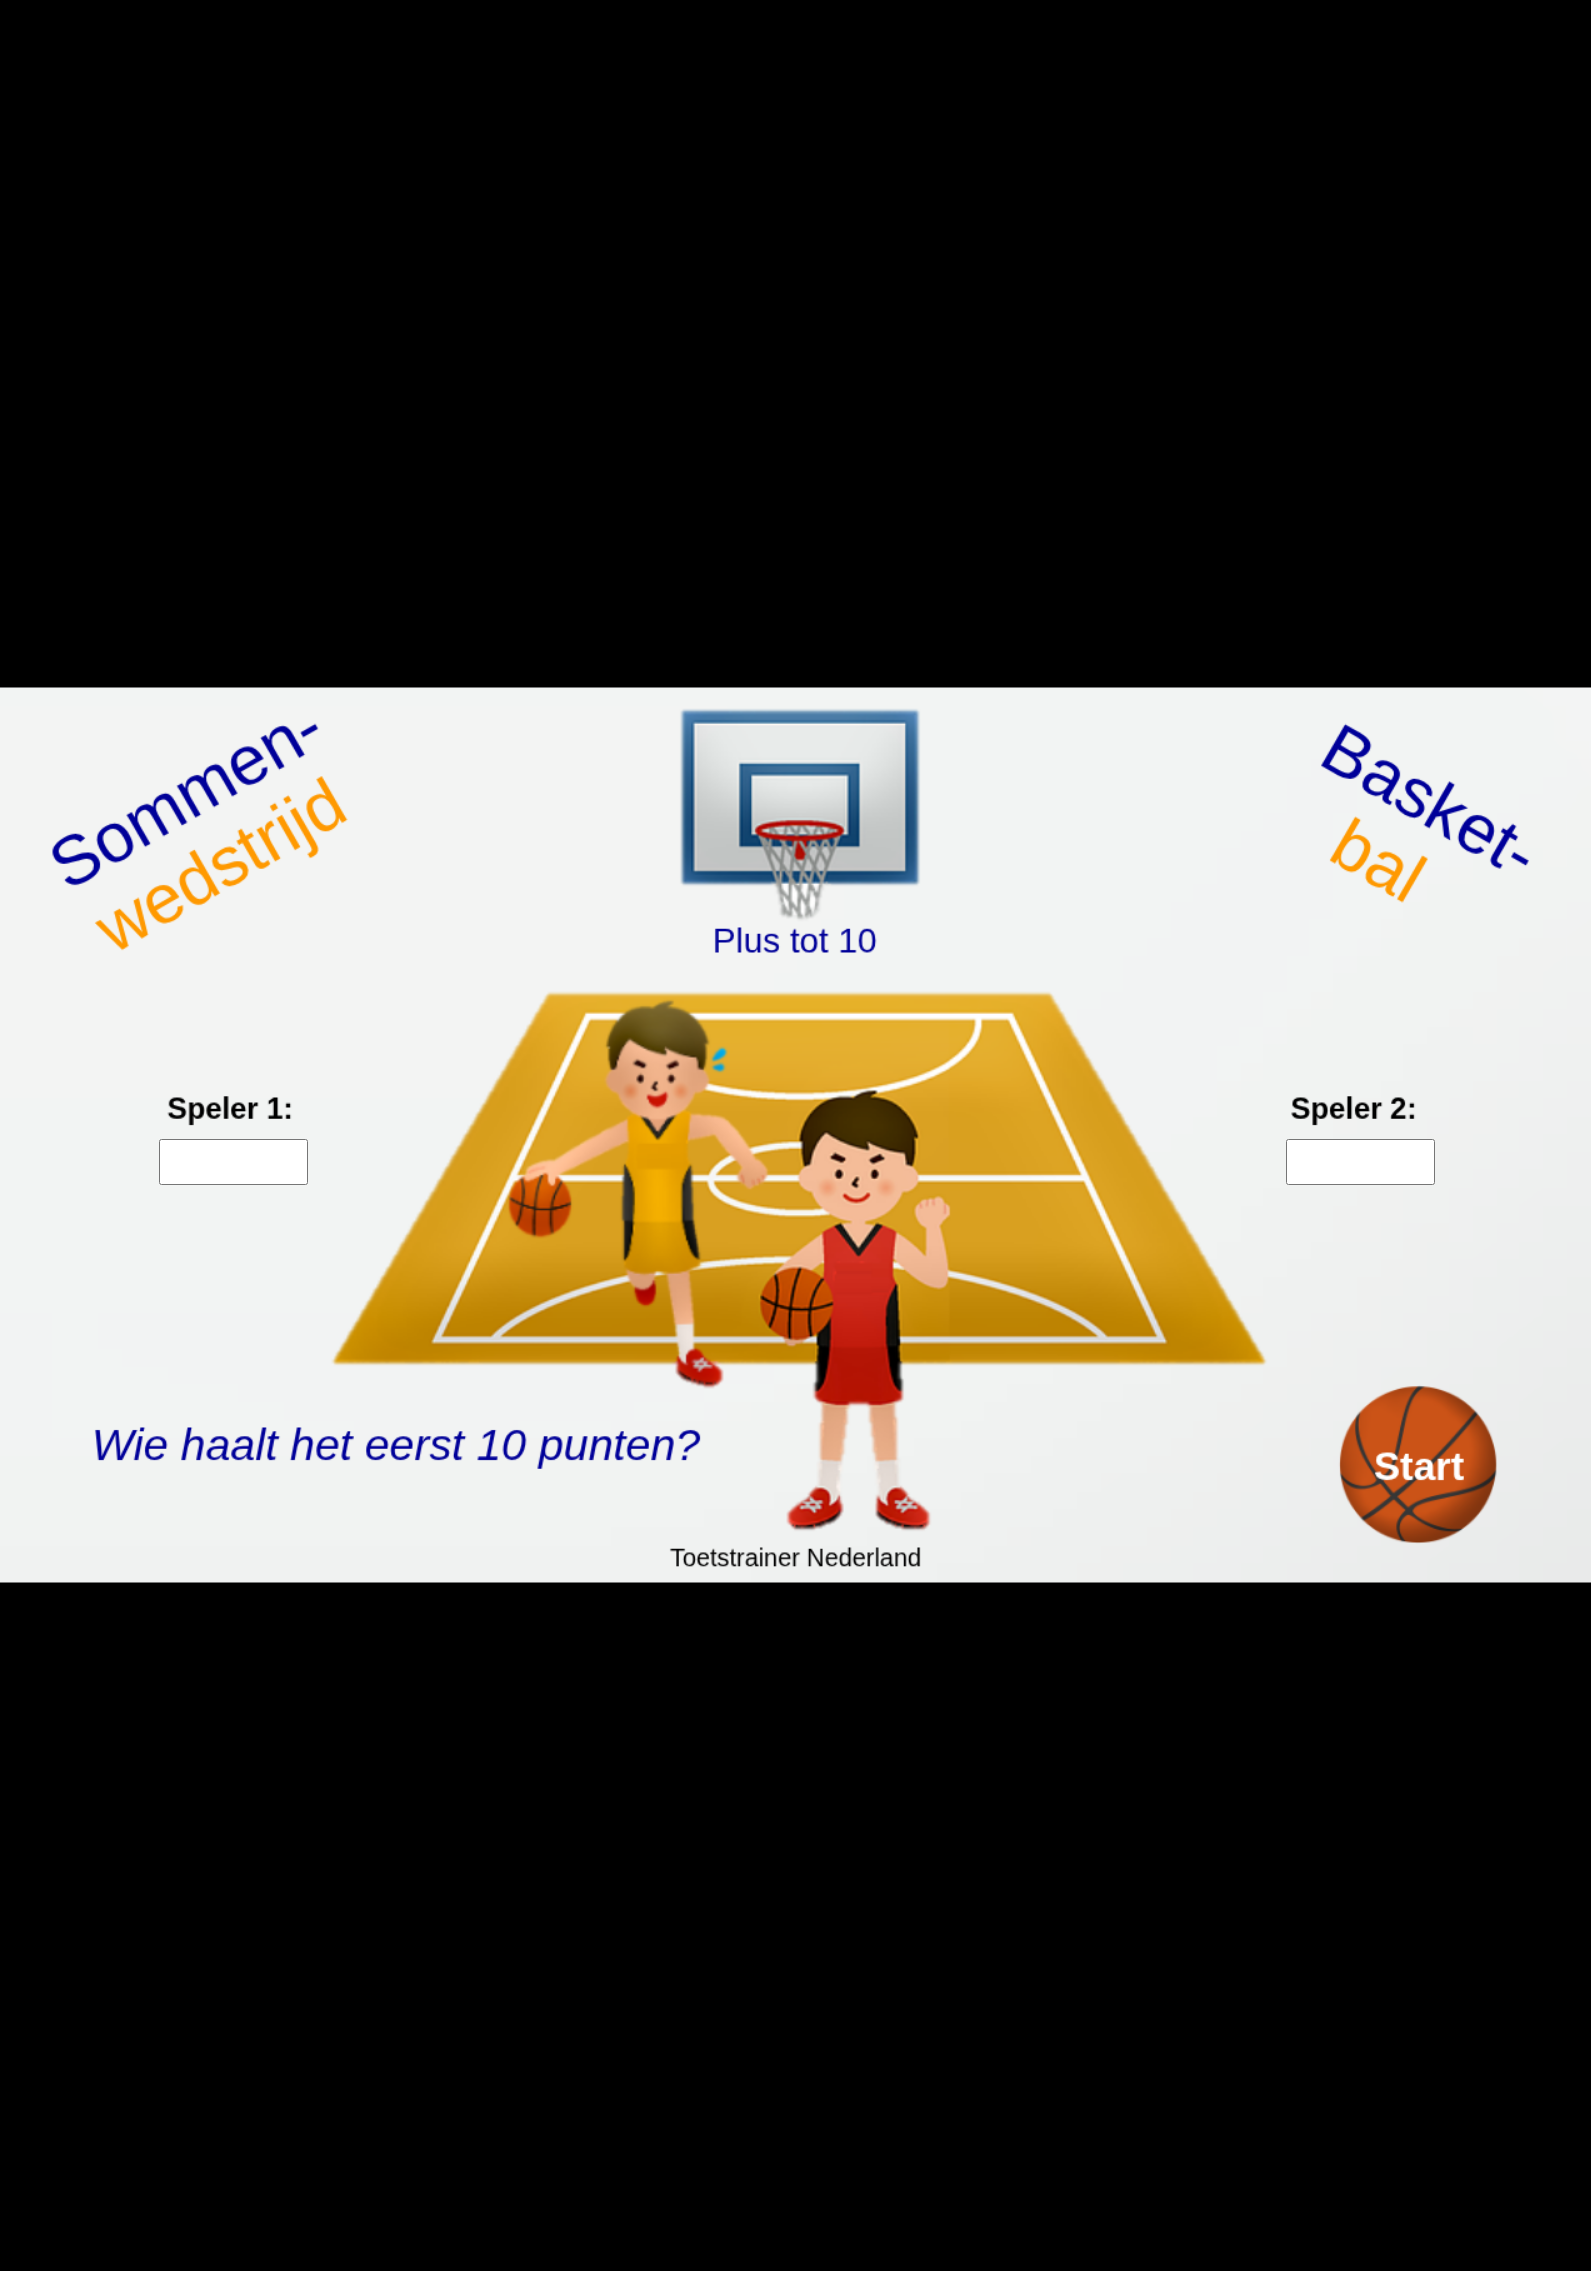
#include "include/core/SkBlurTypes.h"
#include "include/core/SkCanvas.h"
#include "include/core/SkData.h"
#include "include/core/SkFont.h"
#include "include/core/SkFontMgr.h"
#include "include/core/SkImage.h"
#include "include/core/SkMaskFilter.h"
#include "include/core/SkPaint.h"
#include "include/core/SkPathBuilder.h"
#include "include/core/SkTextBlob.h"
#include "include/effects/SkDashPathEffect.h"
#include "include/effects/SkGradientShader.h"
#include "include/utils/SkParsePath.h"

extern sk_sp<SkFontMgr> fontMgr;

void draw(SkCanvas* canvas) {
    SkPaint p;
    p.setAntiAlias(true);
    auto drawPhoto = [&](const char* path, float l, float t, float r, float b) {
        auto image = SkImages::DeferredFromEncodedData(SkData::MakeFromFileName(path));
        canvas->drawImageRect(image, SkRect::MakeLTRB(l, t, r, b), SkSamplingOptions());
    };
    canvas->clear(0xFF000000);
    drawPhoto("media/1.png", 0, 687, 1591, 1583);
    p.setColor(0xFFFFFFFF);
    canvas->drawRoundRect(SkRect::MakeLTRB(159.5f, 1139.5f, 307.5f, 1184.5f), 2, 2, p);
    p.setStyle(SkPaint::kStroke_Style);
    p.setStrokeWidth(1);
    p.setColor(0xFF767676);
    canvas->drawRoundRect(SkRect::MakeLTRB(159.5f, 1139.5f, 307.5f, 1184.5f), 2, 2, p);
    p.setStyle(SkPaint::kFill_Style);
    p.setColor(0xFFFFFFFF);
    canvas->drawRoundRect(SkRect::MakeLTRB(1286.5f, 1139.5f, 1434.5f, 1184.5f), 2, 2, p);
    p.setStyle(SkPaint::kStroke_Style);
    p.setColor(0xFF767676);
    canvas->drawRoundRect(SkRect::MakeLTRB(1286.5f, 1139.5f, 1434.5f, 1184.5f), 2, 2, p);
}
